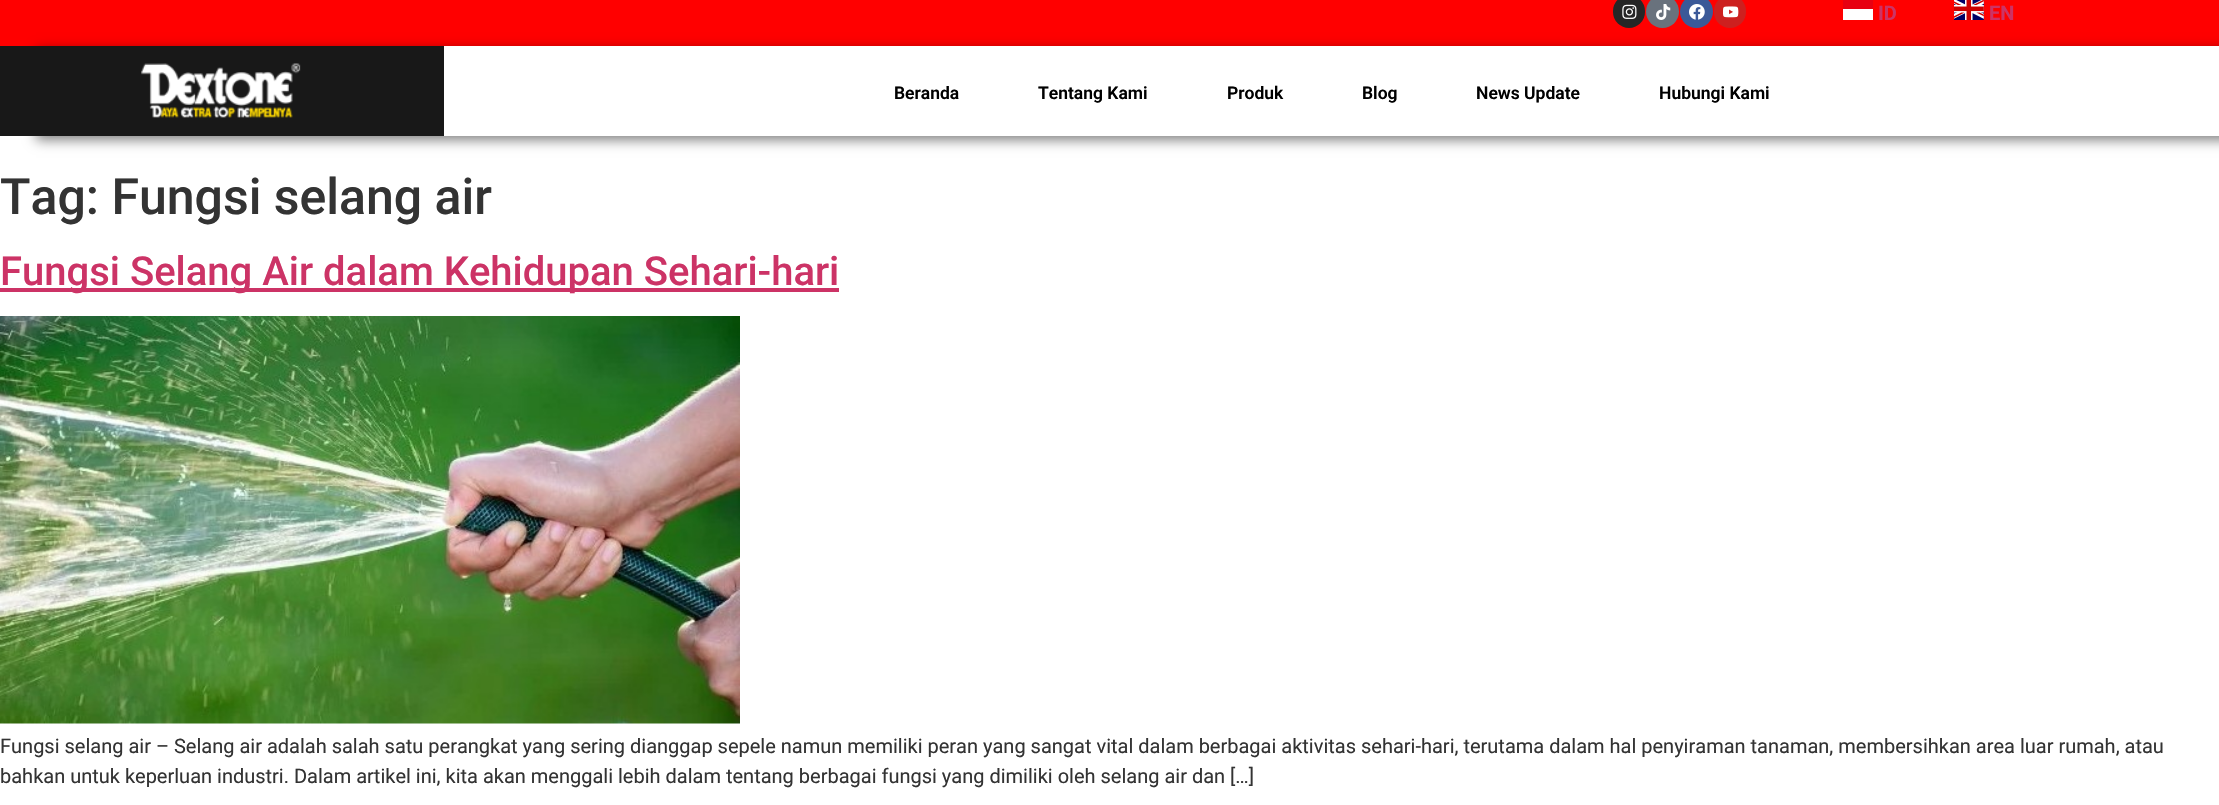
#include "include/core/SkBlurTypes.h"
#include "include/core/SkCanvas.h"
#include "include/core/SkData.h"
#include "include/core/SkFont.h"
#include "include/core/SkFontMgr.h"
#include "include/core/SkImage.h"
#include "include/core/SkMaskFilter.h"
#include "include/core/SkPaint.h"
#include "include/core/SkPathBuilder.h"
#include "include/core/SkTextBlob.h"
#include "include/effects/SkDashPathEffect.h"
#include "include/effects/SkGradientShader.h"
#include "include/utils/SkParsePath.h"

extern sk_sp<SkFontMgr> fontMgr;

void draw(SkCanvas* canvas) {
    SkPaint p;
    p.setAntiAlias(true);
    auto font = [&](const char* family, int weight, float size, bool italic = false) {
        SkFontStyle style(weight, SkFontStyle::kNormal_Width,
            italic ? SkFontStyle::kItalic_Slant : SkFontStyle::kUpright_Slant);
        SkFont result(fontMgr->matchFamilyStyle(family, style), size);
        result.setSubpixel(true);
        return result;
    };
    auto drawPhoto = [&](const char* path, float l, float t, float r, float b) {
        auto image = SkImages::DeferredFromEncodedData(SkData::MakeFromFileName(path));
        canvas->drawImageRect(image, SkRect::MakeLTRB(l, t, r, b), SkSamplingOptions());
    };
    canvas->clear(0xFFFFFFFF);
    p.setColor(0xFFFF0000);
    canvas->drawRect(SkRect::MakeLTRB(0, 0, 2219, 46), p);
    p.setColor(0xFF262626);
    canvas->drawRoundRect(SkRect::MakeLTRB(1613, -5, 1645, 28), 16, 16, p);
    drawPhoto("media/1.png", 1622, 4, 1637, 19);
    p.setColor(0xFF69727D);
    canvas->drawCircle(1662.5f, 11.5f, 16.5f, p);
    drawPhoto("media/2.png", 1656, 4, 1671, 20);
    p.setColor(0xFF3B5998);
    canvas->drawCircle(1696.5f, 11.5f, 16.5f, p);
    drawPhoto("media/3.png", 1689, 4, 1705, 20);
    p.setColor(0xFFCD201F);
    canvas->drawRoundRect(SkRect::MakeLTRB(1714, -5, 1746, 28), 16, 16, p);
    drawPhoto("media/4.png", 1723, 6, 1739, 18);
    auto font1 = font("Roboto", 700, 20);
    p.setColor(0xFFCC3366);
    canvas->drawString("ID", 1878, 20, font1, p);
    p.setColor(0xFFE70011);
    canvas->drawRect(SkRect::MakeLTRB(1843, 0, 1873, 9), p);
    p.setColor(0xFFFFFFFF);
    canvas->drawRect(SkRect::MakeLTRB(1843, 9, 1873, 20), p);
    drawPhoto("media/5.png", 1954, 0, 1984, 20);
    p.setColor(0xFFCC3366);
    canvas->drawString("EN", 1989, 20, font1, p);
    p.setColor(0x80000000);
    p.setMaskFilter(SkMaskFilter::MakeBlur(kNormal_SkBlurStyle, 6));
    canvas->drawRect(SkRect::MakeLTRB(36, 50, 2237, 140), p);
    p.setMaskFilter(nullptr);
    p.setColor(0xFFFFFFFF);
    canvas->drawRect(SkRect::MakeLTRB(444, 46, 2219, 136), p);
    p.setColor(0xFF181818);
    canvas->drawRect(SkRect::MakeLTRB(0, 46, 444, 136), p);
    drawPhoto("media/6.png", 141, 63, 301, 118);
    auto font2 = font("Roboto", 600, 17.5f);
    p.setColor(0xFF000000);
    {
        const struct { const char* s; float x, y; } items[] = {
            {"Beranda", 894, 99},
            {"Tentang Kami", 1038, 99},
            {"Produk", 1227, 99},
            {"Blog", 1362, 99},
            {"News Update", 1476, 99},
            {"Hubungi Kami", 1659, 99},
        };
        for (auto [s, x, y] : items) {
            canvas->drawString(s, x, y, font2, p);
        }
    }
    auto font3 = font("Roboto", 500, 50);
    p.setColor(0xFF333333);
    canvas->drawString("Tag: Fungsi selang air", 0, 214, font3, p);
    p.setColor(0xFFCC3366);
    canvas->drawRect(SkRect::MakeLTRB(0, 288, 839, 292), p);
    auto font4 = font("Roboto", 500, 40);
    canvas->drawString("Fungsi Selang Air dalam Kehidupan Sehari-hari", 0, 285, font4, p);
    drawPhoto("media/7.png", 0, 316, 740, 724);
    auto font5 = font("Roboto", 400, 20);
    p.setColor(0xFF333333);
    canvas->drawString("Fungsi selang air – Selang air adalah salah satu perangkat yang sering dianggap sepele namun memiliki peran yang sangat vital dalam berbagai aktivitas sehari-hari, terutama dalam hal penyiraman tanaman, membersihkan area luar rumah, atau", 0, 753, font5, p);
    canvas->drawString("bahkan untuk keperluan industri. Dalam artikel ini, kita akan menggali lebih dalam tentang berbagai fungsi yang dimiliki oleh selang air dan […]", 0, 783, font5, p);
}
